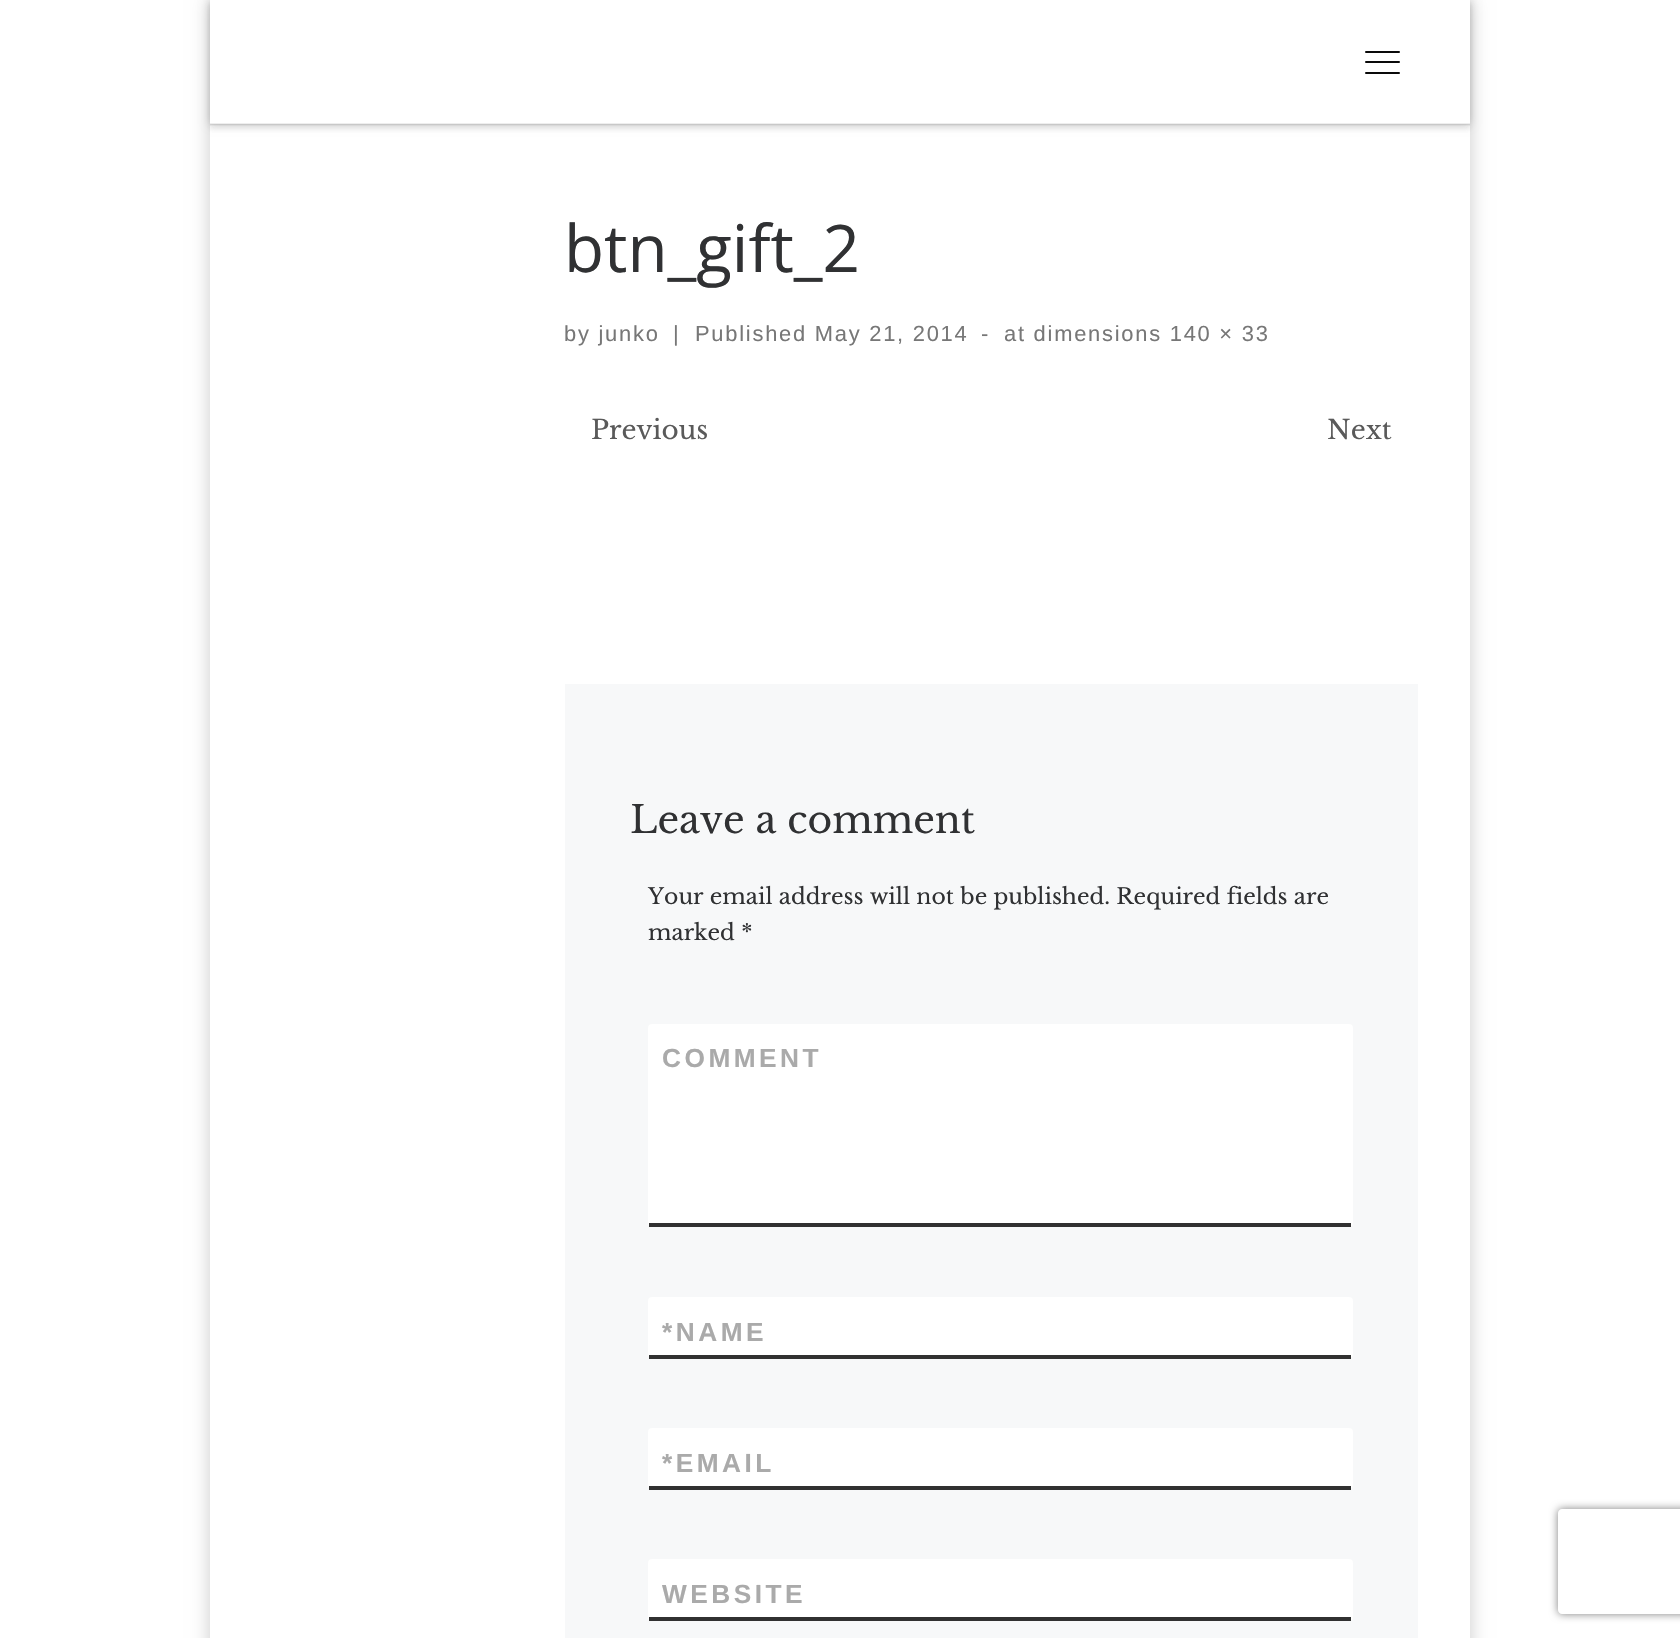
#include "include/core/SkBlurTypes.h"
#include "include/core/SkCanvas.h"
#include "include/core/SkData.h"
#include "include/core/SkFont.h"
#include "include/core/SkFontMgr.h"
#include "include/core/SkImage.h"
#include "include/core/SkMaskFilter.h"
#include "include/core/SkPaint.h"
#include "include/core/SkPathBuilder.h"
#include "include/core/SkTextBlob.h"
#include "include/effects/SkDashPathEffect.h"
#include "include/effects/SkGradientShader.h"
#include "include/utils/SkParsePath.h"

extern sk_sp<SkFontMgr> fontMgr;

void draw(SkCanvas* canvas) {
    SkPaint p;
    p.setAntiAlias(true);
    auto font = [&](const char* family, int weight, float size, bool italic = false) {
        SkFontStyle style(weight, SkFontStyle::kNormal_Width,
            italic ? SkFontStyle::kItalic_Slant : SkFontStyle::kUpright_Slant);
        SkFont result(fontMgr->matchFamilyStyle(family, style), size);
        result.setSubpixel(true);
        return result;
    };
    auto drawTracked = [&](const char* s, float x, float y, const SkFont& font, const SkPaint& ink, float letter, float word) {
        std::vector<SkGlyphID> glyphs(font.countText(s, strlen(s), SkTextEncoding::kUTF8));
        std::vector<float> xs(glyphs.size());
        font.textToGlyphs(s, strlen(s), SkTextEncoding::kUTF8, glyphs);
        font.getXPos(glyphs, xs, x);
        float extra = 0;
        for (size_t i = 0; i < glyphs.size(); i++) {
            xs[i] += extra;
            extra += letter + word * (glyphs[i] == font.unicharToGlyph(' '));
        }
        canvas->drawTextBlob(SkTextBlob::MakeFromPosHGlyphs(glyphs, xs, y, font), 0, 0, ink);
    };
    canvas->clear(0xFFFFFFFF);
    canvas->save();
    canvas->clipPath(SkPathBuilder(SkPathFillType::kEvenOdd).moveTo(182, 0).lineTo(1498, 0).lineTo(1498, 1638).lineTo(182, 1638).close().moveTo(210, 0).lineTo(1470, 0).lineTo(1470, 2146).lineTo(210, 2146).close().detach(), true);
    p.setColor(0x33000000);
    p.setMaskFilter(SkMaskFilter::MakeBlur(kNormal_SkBlurStyle, 9));
    canvas->drawRect(SkRect::MakeLTRB(210, 0, 1470, 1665), p);
    p.setMaskFilter(nullptr);
    canvas->restore();
    canvas->save();
    canvas->clipPath(SkPathBuilder(SkPathFillType::kEvenOdd).moveTo(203, 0).lineTo(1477, 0).lineTo(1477, 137).lineTo(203, 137).close().moveTo(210, 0).lineTo(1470, 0).lineTo(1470, 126).lineTo(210, 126).close().detach(), true);
    p.setColor(0x14666666);
    p.setMaskFilter(SkMaskFilter::MakeBlur(kNormal_SkBlurStyle, 2));
    canvas->drawRect(SkRect::MakeLTRB(210, 4, 1470, 130), p);
    p.setMaskFilter(nullptr);
    canvas->restore();
    p.setColor(0xFFECECEC);
    canvas->drawRect(SkRect::MakeLTRB(210, 124, 1470, 126), p);
    canvas->save();
    canvas->clipPath(SkPathBuilder(SkPathFillType::kEvenOdd).moveTo(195, 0).lineTo(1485, 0).lineTo(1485, 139).lineTo(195, 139).close().moveTo(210, 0).lineTo(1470, 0).lineTo(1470, 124).lineTo(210, 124).close().detach(), true);
    p.setColor(0x33000000);
    p.setMaskFilter(SkMaskFilter::MakeBlur(kNormal_SkBlurStyle, 4.5f));
    canvas->drawRect(SkRect::MakeLTRB(210, 0, 1470, 124), p);
    p.setMaskFilter(nullptr);
    canvas->restore();
    p.setColor(0xFF0A0A0A);
    canvas->drawRoundRect(SkRect::MakeLTRB(1365, 51, 1400, 53), 1, 1, p);
    canvas->drawRoundRect(SkRect::MakeLTRB(1365, 61, 1400, 63), 1, 1, p);
    canvas->drawRoundRect(SkRect::MakeLTRB(1365, 72, 1400, 74), 1, 1, p);
    p.setColor(0x120A0A0A);
    canvas->drawRect(SkRect::MakeLTRB(210, 123, 1470, 125), p);
    auto font1 = font("Open Sans", 400, 65.5f);
    p.setColor(0xFF303133);
    canvas->drawString("btn_gift_2", 564, 272, font1, p);
    auto font2 = font("Liberation Sans", 400, 21.9f);
    p.setColor(0xFF777777);
    {
        const struct { const char* s; float x, y; } items[] = {
            {"by junko", 564, 341},
            {"|", 673, 341},
            {"Published May 21, 2014", 695, 341},
            {"-", 981, 341},
            {"at dimensions 140 × 33", 1004, 341},
        };
        for (auto [s, x, y] : items) {
            drawTracked(s, x, y, font2, p, 1.75f, 0);
        }
    }
    auto font3 = font("Libre Baskerville", 400, 26.25f);
    p.setColor(0xFF5A5A5A);
    canvas->drawString("Previous", 591, 439, font3, p);
    canvas->drawString("Next", 1327, 439, font3, p);
    p.setColor(0xFFF7F8F9);
    canvas->drawRect(SkRect::MakeLTRB(565, 684, 1418, 1638), p);
    auto font4 = font("Libre Baskerville", 400, 37.75f);
    p.setColor(0xFF303133);
    canvas->drawString("Leave a comment", 630, 833, font4, p);
    auto font5 = font("Libre Baskerville", 400, 21.9f);
    canvas->drawString("Your email address will not be published. Required fields are", 648, 904, font5, p);
    canvas->drawString("marked *", 648, 940, font5, p);
    p.setColor(0xFFFFFFFF);
    canvas->drawRoundRect(SkRect::MakeLTRB(648, 1024, 1353, 1227), 4, 4, p);
    p.setColor(0xFF313131);
    canvas->drawRect(SkRect::MakeLTRB(649, 1223, 1351, 1227), p);
    auto font6 = font("Liberation Sans", 700, 26.25f);
    p.setColor(0xFFAAAAAA);
    drawTracked("COMMENT", 662, 1067, font6, p, 3.5f, 0);
    p.setColor(0xFFFFFFFF);
    canvas->drawRoundRect(SkRect::MakeLTRB(648, 1297, 1353, 1358), 4, 4, p);
    p.setColor(0xFF313131);
    canvas->drawRect(SkRect::MakeLTRB(649, 1355, 1351, 1359), p);
    p.setColor(0xFFAAAAAA);
    drawTracked("*NAME", 662, 1341, font6, p, 3.5f, 0);
    p.setColor(0xFFFFFFFF);
    canvas->drawRoundRect(SkRect::MakeLTRB(648, 1428, 1353, 1489), 4, 4, p);
    p.setColor(0xFF313131);
    canvas->drawRect(SkRect::MakeLTRB(649, 1486, 1351, 1490), p);
    p.setColor(0xFFAAAAAA);
    drawTracked("*EMAIL", 662, 1472, font6, p, 3.5f, 0);
    p.setColor(0xFFFFFFFF);
    canvas->drawRoundRect(SkRect::MakeLTRB(648, 1559, 1353, 1621), 4, 4, p);
    p.setColor(0xFF313131);
    canvas->drawRect(SkRect::MakeLTRB(649, 1617, 1351, 1621), p);
    p.setColor(0xFFAAAAAA);
    drawTracked("WEBSITE", 662, 1603, font6, p, 3.5f, 0);
    canvas->save();
    canvas->clipPath(SkPathBuilder(SkPathFillType::kEvenOdd).moveTo(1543, 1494).lineTo(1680, 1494).lineTo(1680, 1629).lineTo(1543, 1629).close().moveTo(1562, 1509).lineTo(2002, 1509).cubicTo(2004, 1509, 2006, 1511, 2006, 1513).lineTo(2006, 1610).cubicTo(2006, 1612, 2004, 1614, 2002, 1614).lineTo(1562, 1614).cubicTo(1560, 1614, 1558, 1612, 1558, 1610).lineTo(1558, 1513).cubicTo(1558, 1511, 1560, 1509, 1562, 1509).close().detach(), true);
    p.setColor(0xFF808080);
    p.setMaskFilter(SkMaskFilter::MakeBlur(kNormal_SkBlurStyle, 4.5f));
    canvas->drawRoundRect(SkRect::MakeLTRB(1558, 1509, 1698, 1614), 4, 4, p);
    p.setMaskFilter(nullptr);
    canvas->restore();
}
